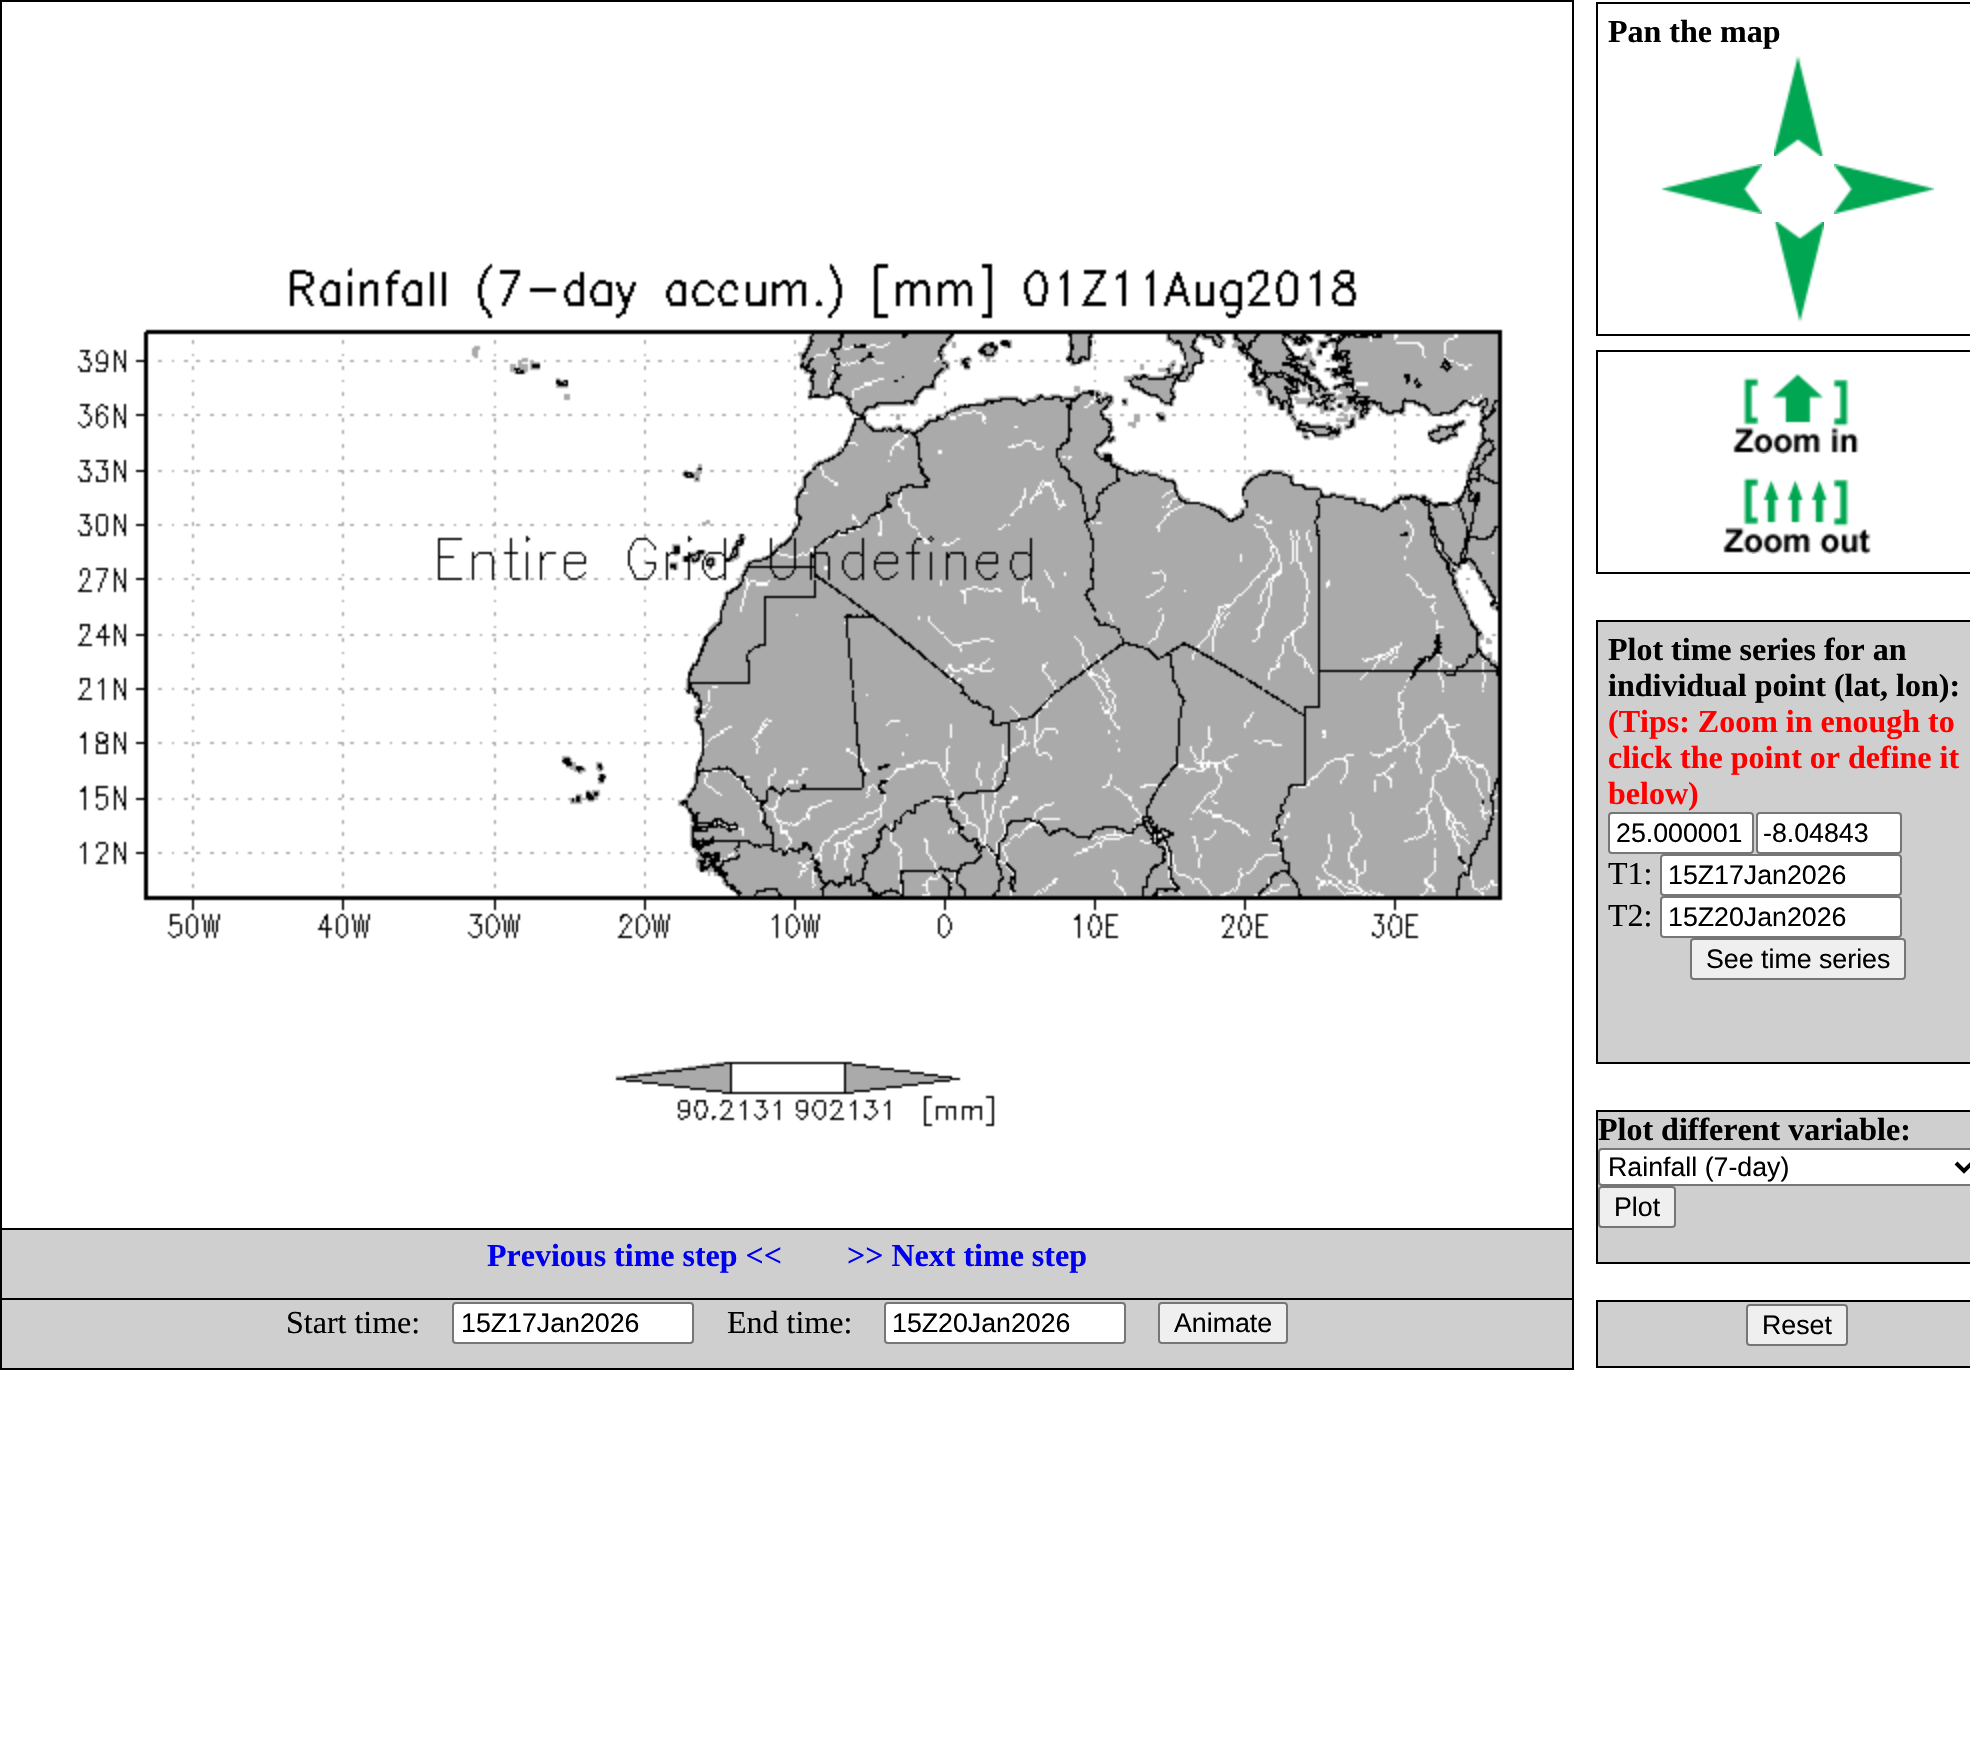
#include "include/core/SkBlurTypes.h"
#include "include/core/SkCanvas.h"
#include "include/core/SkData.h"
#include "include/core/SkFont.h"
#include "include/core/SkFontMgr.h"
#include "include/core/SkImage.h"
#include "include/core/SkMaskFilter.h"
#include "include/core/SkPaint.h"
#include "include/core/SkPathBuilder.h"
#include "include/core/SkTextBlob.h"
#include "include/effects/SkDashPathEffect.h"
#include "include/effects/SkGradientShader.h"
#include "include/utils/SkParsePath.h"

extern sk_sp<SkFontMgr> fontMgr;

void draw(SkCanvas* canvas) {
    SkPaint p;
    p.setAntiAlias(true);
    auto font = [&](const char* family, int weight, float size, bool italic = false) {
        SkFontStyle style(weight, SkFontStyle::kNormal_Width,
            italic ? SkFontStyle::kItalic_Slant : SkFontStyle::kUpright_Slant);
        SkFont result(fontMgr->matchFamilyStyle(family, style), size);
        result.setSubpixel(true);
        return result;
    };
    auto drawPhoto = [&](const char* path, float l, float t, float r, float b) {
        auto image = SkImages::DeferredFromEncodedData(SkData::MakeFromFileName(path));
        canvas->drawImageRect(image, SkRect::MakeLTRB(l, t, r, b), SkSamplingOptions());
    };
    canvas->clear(0xFFFFFFFF);
    p.setStyle(SkPaint::kStroke_Style);
    p.setStrokeWidth(2);
    p.setColor(0xFF000000);
    canvas->drawRect(SkRect::MakeLTRB(1, 1, 1573, 1369), p);
    drawPhoto("media/1.png", 77, 263, 1503, 1127);
    canvas->drawRect(SkRect::MakeLTRB(1597, 3, 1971, 335), p);
    auto font1 = font("Liberation Serif", 700, 32);
    p.setStyle(SkPaint::kFill_Style);
    canvas->drawString("Pan the map", 1608, 42, font1, p);
    drawPhoto("media/2.png", 1774, 56, 1824, 156);
    drawPhoto("media/3.png", 1662, 164, 1762, 214);
    drawPhoto("media/4.png", 1834, 164, 1934, 214);
    drawPhoto("media/5.png", 1774, 222, 1824, 322);
    p.setStyle(SkPaint::kStroke_Style);
    canvas->drawRect(SkRect::MakeLTRB(1597, 351, 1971, 573), p);
    drawPhoto("media/6.png", 1733, 374, 1859, 454);
    drawPhoto("media/7.png", 1723, 477, 1871, 554);
    p.setStyle(SkPaint::kFill_Style);
    p.setColor(0xFFCFCFCF);
    canvas->drawRect(SkRect::MakeLTRB(1597, 621, 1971, 1063), p);
    p.setStyle(SkPaint::kStroke_Style);
    p.setColor(0xFF000000);
    canvas->drawRect(SkRect::MakeLTRB(1597, 621, 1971, 1063), p);
    p.setStyle(SkPaint::kFill_Style);
    canvas->drawString("Plot time series for an", 1608, 660, font1, p);
    canvas->drawString("individual point (lat, lon):", 1608, 696, font1, p);
    p.setColor(0xFFFF0000);
    {
        const struct { const char* s; float x, y; } items[] = {
            {"(Tips: Zoom in enough to", 1608, 732},
            {"click the point or define it", 1608, 768},
            {"below)", 1608, 804},
        };
        for (auto [s, x, y] : items) {
            canvas->drawString(s, x, y, font1, p);
        }
    }
    p.setColor(0xFFFFFFFF);
    canvas->drawRoundRect(SkRect::MakeLTRB(1609, 813, 1753, 853), 3, 3, p);
    p.setStyle(SkPaint::kStroke_Style);
    p.setColor(0xFF767676);
    canvas->drawRoundRect(SkRect::MakeLTRB(1609, 813, 1753, 853), 3, 3, p);
    auto font2 = font("Liberation Sans", 400, 26.75f);
    p.setStyle(SkPaint::kFill_Style);
    p.setColor(0xFF000000);
    canvas->drawString("25.000001", 1616, 842, font2, p);
    p.setColor(0xFFFFFFFF);
    canvas->drawRoundRect(SkRect::MakeLTRB(1757, 813, 1901, 853), 3, 3, p);
    p.setStyle(SkPaint::kStroke_Style);
    p.setColor(0xFF767676);
    canvas->drawRoundRect(SkRect::MakeLTRB(1757, 813, 1901, 853), 3, 3, p);
    p.setStyle(SkPaint::kFill_Style);
    p.setColor(0xFF000000);
    canvas->drawString("-8.04843", 1763, 842, font2, p);
    auto font3 = font("Liberation Serif", 400, 32);
    canvas->drawString("T1:", 1608, 884, font3, p);
    p.setColor(0xFFFFFFFF);
    canvas->drawRoundRect(SkRect::MakeLTRB(1661, 855, 1901, 895), 3, 3, p);
    p.setStyle(SkPaint::kStroke_Style);
    p.setColor(0xFF767676);
    canvas->drawRoundRect(SkRect::MakeLTRB(1661, 855, 1901, 895), 3, 3, p);
    p.setStyle(SkPaint::kFill_Style);
    p.setColor(0xFF000000);
    canvas->drawString("15Z17Jan2026", 1668, 884, font2, p);
    canvas->drawString("T2:", 1608, 926, font3, p);
    p.setColor(0xFFFFFFFF);
    canvas->drawRoundRect(SkRect::MakeLTRB(1661, 897, 1901, 937), 3, 3, p);
    p.setStyle(SkPaint::kStroke_Style);
    p.setColor(0xFF767676);
    canvas->drawRoundRect(SkRect::MakeLTRB(1661, 897, 1901, 937), 3, 3, p);
    p.setStyle(SkPaint::kFill_Style);
    p.setColor(0xFF000000);
    canvas->drawString("15Z20Jan2026", 1668, 926, font2, p);
    p.setColor(0xFFEFEFEF);
    canvas->drawRoundRect(SkRect::MakeLTRB(1691, 939, 1905, 979), 3, 3, p);
    p.setStyle(SkPaint::kStroke_Style);
    p.setColor(0xFF767676);
    canvas->drawRoundRect(SkRect::MakeLTRB(1691, 939, 1905, 979), 3, 3, p);
    p.setStyle(SkPaint::kFill_Style);
    p.setColor(0xFF000000);
    canvas->drawString("See time series", 1706, 968, font2, p);
    p.setColor(0xFFCFCFCF);
    canvas->drawRect(SkRect::MakeLTRB(1597, 1111, 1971, 1263), p);
    p.setStyle(SkPaint::kStroke_Style);
    p.setColor(0xFF000000);
    canvas->drawRect(SkRect::MakeLTRB(1597, 1111, 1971, 1263), p);
    p.setStyle(SkPaint::kFill_Style);
    canvas->drawString("Plot different variable:", 1598, 1140, font1, p);
    p.setColor(0xFFFFFFFF);
    canvas->drawRoundRect(SkRect::MakeLTRB(1599, 1149, 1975, 1185), 3, 3, p);
    p.setStyle(SkPaint::kStroke_Style);
    p.setColor(0xFF767676);
    canvas->drawRoundRect(SkRect::MakeLTRB(1599, 1149, 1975, 1185), 3, 3, p);
    p.setStrokeWidth(4);
    p.setColor(0xFF000000);
    canvas->drawPath(SkPathBuilder().moveTo(1956, 1163).lineTo(1964, 1171).lineTo(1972, 1163).detach(), p);
    p.setStyle(SkPaint::kFill_Style);
    canvas->drawString("Rainfall (7-day)", 1608, 1176, font2, p);
    p.setColor(0xFFEFEFEF);
    canvas->drawRoundRect(SkRect::MakeLTRB(1599, 1187, 1675, 1227), 3, 3, p);
    p.setStyle(SkPaint::kStroke_Style);
    p.setStrokeWidth(2);
    p.setColor(0xFF767676);
    canvas->drawRoundRect(SkRect::MakeLTRB(1599, 1187, 1675, 1227), 3, 3, p);
    p.setStyle(SkPaint::kFill_Style);
    p.setColor(0xFF000000);
    canvas->drawString("Plot", 1614, 1216, font2, p);
    p.setColor(0xFFCFCFCF);
    canvas->drawRect(SkRect::MakeLTRB(1, 1229, 1573, 1299), p);
    p.setStyle(SkPaint::kStroke_Style);
    p.setColor(0xFF000000);
    canvas->drawRect(SkRect::MakeLTRB(1, 1229, 1573, 1299), p);
    p.setStyle(SkPaint::kFill_Style);
    p.setColor(0xFF0000EE);
    canvas->drawString("Previous time step <<", 487, 1266, font1, p);
    canvas->drawString(">> Next time step", 847, 1266, font1, p);
    p.setColor(0xFFCFCFCF);
    canvas->drawRect(SkRect::MakeLTRB(2, 1300, 1572, 1368), p);
    p.setColor(0xFF000000);
    canvas->drawString("Start time:", 286, 1333, font3, p);
    p.setColor(0xFFFFFFFF);
    canvas->drawRoundRect(SkRect::MakeLTRB(453, 1303, 693, 1343), 3, 3, p);
    p.setStyle(SkPaint::kStroke_Style);
    p.setColor(0xFF767676);
    canvas->drawRoundRect(SkRect::MakeLTRB(453, 1303, 693, 1343), 3, 3, p);
    p.setStyle(SkPaint::kFill_Style);
    p.setColor(0xFF000000);
    canvas->drawString("15Z17Jan2026", 461, 1332, font2, p);
    canvas->drawString("End time:", 727, 1333, font3, p);
    p.setColor(0xFFFFFFFF);
    canvas->drawRoundRect(SkRect::MakeLTRB(885, 1303, 1125, 1343), 3, 3, p);
    p.setStyle(SkPaint::kStroke_Style);
    p.setColor(0xFF767676);
    canvas->drawRoundRect(SkRect::MakeLTRB(885, 1303, 1125, 1343), 3, 3, p);
    p.setStyle(SkPaint::kFill_Style);
    p.setColor(0xFF000000);
    canvas->drawString("15Z20Jan2026", 892, 1332, font2, p);
    p.setColor(0xFFEFEFEF);
    canvas->drawRoundRect(SkRect::MakeLTRB(1159, 1303, 1287, 1343), 3, 3, p);
    p.setStyle(SkPaint::kStroke_Style);
    p.setColor(0xFF767676);
    canvas->drawRoundRect(SkRect::MakeLTRB(1159, 1303, 1287, 1343), 3, 3, p);
    p.setStyle(SkPaint::kFill_Style);
    p.setColor(0xFF000000);
    canvas->drawString("Animate", 1174, 1332, font2, p);
    p.setColor(0xFFCFCFCF);
    canvas->drawRect(SkRect::MakeLTRB(1597, 1301, 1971, 1367), p);
    p.setStyle(SkPaint::kStroke_Style);
    p.setColor(0xFF000000);
    canvas->drawRect(SkRect::MakeLTRB(1597, 1301, 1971, 1367), p);
    p.setStyle(SkPaint::kFill_Style);
    p.setColor(0xFFEFEFEF);
    canvas->drawRoundRect(SkRect::MakeLTRB(1747, 1305, 1847, 1345), 3, 3, p);
    p.setStyle(SkPaint::kStroke_Style);
    p.setColor(0xFF767676);
    canvas->drawRoundRect(SkRect::MakeLTRB(1747, 1305, 1847, 1345), 3, 3, p);
    p.setStyle(SkPaint::kFill_Style);
    p.setColor(0xFF000000);
    canvas->drawString("Reset", 1762, 1334, font2, p);
}
